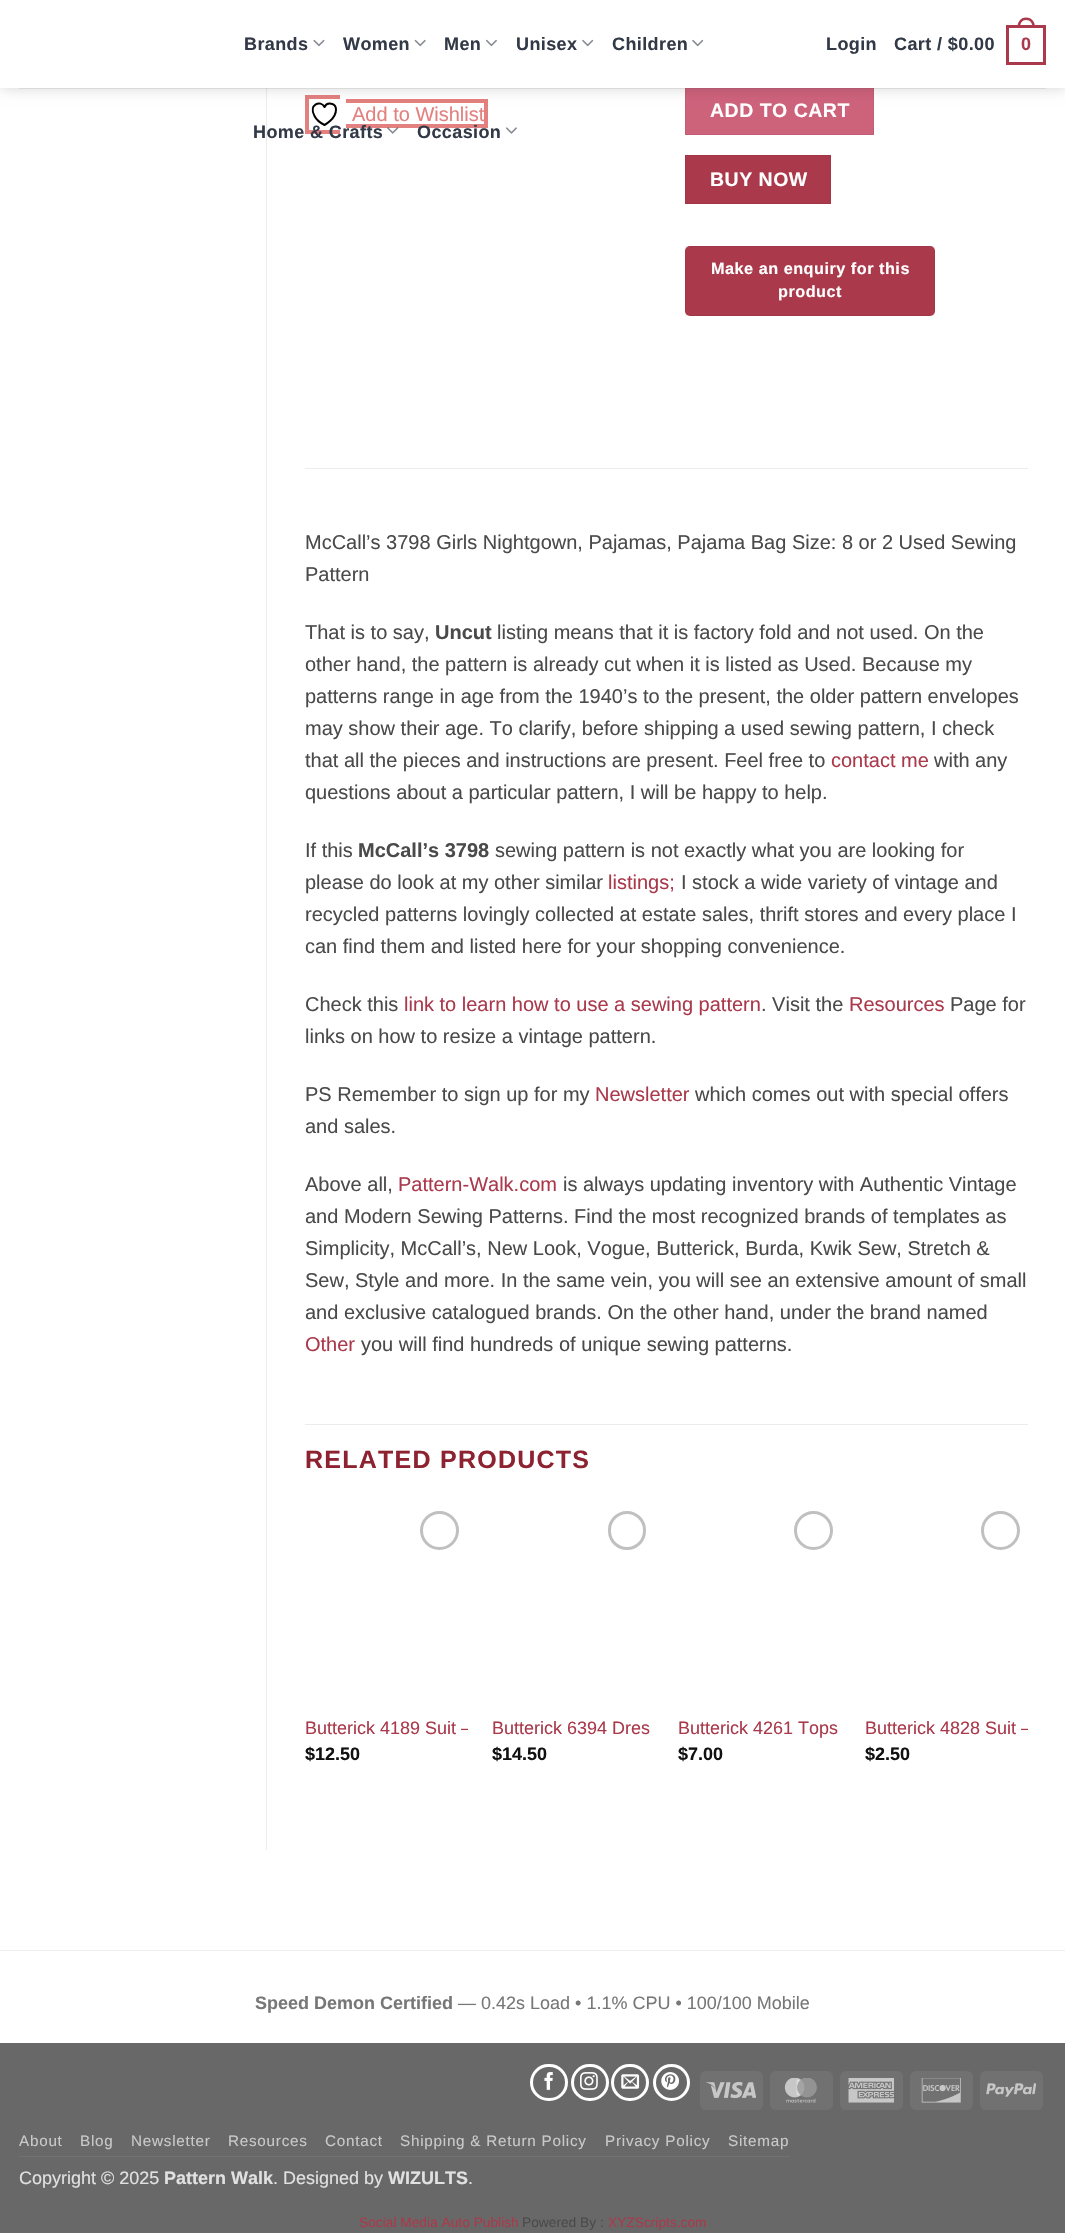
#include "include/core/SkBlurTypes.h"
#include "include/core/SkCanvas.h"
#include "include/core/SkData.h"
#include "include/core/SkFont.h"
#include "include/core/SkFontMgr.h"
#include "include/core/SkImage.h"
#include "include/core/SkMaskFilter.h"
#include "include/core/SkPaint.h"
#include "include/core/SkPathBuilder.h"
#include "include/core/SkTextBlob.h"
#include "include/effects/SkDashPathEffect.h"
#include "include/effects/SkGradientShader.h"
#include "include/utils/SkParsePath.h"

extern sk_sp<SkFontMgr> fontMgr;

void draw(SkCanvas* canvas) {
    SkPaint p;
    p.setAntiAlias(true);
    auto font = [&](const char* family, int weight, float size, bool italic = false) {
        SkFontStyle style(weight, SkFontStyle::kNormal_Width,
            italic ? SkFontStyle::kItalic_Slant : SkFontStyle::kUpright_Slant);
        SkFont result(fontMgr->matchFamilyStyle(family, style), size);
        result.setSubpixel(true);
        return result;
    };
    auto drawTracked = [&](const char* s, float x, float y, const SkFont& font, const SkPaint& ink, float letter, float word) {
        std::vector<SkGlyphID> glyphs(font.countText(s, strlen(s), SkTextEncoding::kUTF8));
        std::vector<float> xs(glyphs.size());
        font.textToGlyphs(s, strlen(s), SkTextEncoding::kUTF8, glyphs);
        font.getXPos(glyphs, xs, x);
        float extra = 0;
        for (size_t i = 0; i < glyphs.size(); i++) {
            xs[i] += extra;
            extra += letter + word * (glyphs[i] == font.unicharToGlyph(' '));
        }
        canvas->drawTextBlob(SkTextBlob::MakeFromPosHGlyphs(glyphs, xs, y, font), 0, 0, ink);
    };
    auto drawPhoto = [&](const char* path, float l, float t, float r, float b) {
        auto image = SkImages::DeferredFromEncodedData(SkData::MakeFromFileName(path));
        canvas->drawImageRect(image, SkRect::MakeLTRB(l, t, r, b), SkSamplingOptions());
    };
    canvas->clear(0xFF686868);
    {
        const struct { float l, t, r, b; SkColor color; } items[] = {
            {0, 88, 1065, 2043, 0xFFFFFFFF},
            {266, 88, 267, 1850, 0xFFECECEC},
            {305, 95, 340, 99, 0xFFE38080},
            {305, 130, 340, 134, 0xFFE38080},
            {305, 95, 309, 134, 0xFFE38080},
            {346, 99, 488, 103, 0xFFE38080},
            {484, 99, 488, 128, 0xFFE38080},
        };
        for (auto [l, t, r, b, color] : items) {
            p.setColor(color);
            canvas->drawRect(SkRect::MakeLTRB(l, t, r, b), p);
        }
    }
    p.setStyle(SkPaint::kStroke_Style);
    p.setStrokeWidth(2);
    p.setStrokeCap(SkPaint::kRound_Cap);
    p.setStrokeJoin(SkPaint::kRound_Join);
    p.setColor(0xFF000000);
    canvas->drawPath(SkPathBuilder().moveTo(336, 109.5f).cubicTo(336, 103, 327, 101.5f, 324.5f, 107).cubicTo(321, 99.5f, 308, 104.5f, 314.5f, 116).cubicTo(316.5f, 120, 320.5f, 123, 324.5f, 125).cubicTo(324.5f, 125, 336, 119, 336, 109.5f).close().detach(), p);
    p.setStyle(SkPaint::kFill_Style);
    p.setColor(0xFFCD627B);
    canvas->drawRect(SkRect::MakeLTRB(686, 88, 873, 134), p);
    p.setStyle(SkPaint::kStroke_Style);
    p.setStrokeWidth(1);
    p.setStrokeCap(SkPaint::kButt_Cap);
    p.setStrokeJoin(SkPaint::kMiter_Join);
    p.setColor(0xFFC35D75);
    canvas->drawRect(SkRect::MakeLTRB(685.5f, 86.5f, 873.5f, 134.5f), p);
    p.setStyle(SkPaint::kFill_Style);
    p.setColor(0x26000000);
    p.setMaskFilter(SkMaskFilter::MakeBlur(kNormal_SkBlurStyle, 6));
    canvas->drawRect(SkRect::MakeLTRB(1, 1, 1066, 89), p);
    p.setMaskFilter(nullptr);
    p.setColor(0xFFFFFFFF);
    canvas->drawRect(SkRect::MakeLTRB(0, 0, 1065, 88), p);
    auto font1 = font("Liberation Sans", 700, 18);
    p.setColor(0xFF323947);
    drawTracked("Brands", 244, 50, font1, p, 0.4f, 0);
    drawPhoto("media/1.png", 313, 39, 325, 47);
    drawTracked("Women", 343, 50, font1, p, 0.4f, 0);
    drawPhoto("media/2.png", 414, 39, 426, 47);
    drawTracked("Men", 444, 50, font1, p, 0.4f, 0);
    drawPhoto("media/3.png", 485, 39, 497, 47);
    drawTracked("Unisex", 516, 50, font1, p, 0.4f, 0);
    drawPhoto("media/4.png", 582, 39, 594, 47);
    drawTracked("Children", 612, 50, font1, p, 0.4f, 0);
    drawPhoto("media/4.png", 692, 39, 704, 47);
    p.setColor(0xFFE38080);
    canvas->drawRect(SkRect::MakeLTRB(346, 124, 351, 128), p);
    canvas->drawRect(SkRect::MakeLTRB(351, 124, 488, 128), p);
    p.setColor(0xFF323947);
    drawTracked("Home & Crafts", 253, 138, font1, p, 0.4f, 0);
    drawPhoto("media/5.png", 387, 127, 399, 134);
    drawTracked("Occasion", 417, 138, font1, p, 0.4f, 0);
    drawPhoto("media/6.png", 505, 127, 517, 134);
    drawTracked("Login", 826, 50, font1, p, 0.4f, 0);
    drawTracked("Cart / $0.00", 894, 50, font1, p, 0.4f, 0);
    p.setStyle(SkPaint::kStroke_Style);
    p.setStrokeWidth(3);
    p.setColor(0xFFAA394B);
    canvas->drawRect(SkRect::MakeLTRB(1007.5f, 26.5f, 1044.5f, 63.5f), p);
    p.setStyle(SkPaint::kFill_Style);
    canvas->drawPath(SkPathBuilder(SkPathFillType::kEvenOdd).moveTo(1026, 17.5f).cubicTo(1032, 17.5f, 1035, 22, 1035, 27.5f).lineTo(1017.5f, 27.5f).cubicTo(1017.5f, 22, 1020.5f, 17.5f, 1026, 17.5f).close().moveTo(1026, 20).cubicTo(1030.5f, 20, 1032.5f, 23.5f, 1032.5f, 27.5f).lineTo(1020, 27.5f).cubicTo(1020, 23.5f, 1022, 20, 1026, 20).close().detach(), p);
    drawTracked("0", 1021, 50, font1, p, 0.4f, 0);
    p.setColor(0x1A4A4A4A);
    canvas->drawRect(SkRect::MakeLTRB(19, 88, 1046, 89), p);
    auto font2 = font("Liberation Sans", 400, 20);
    p.setColor(0xFFE38080);
    canvas->drawString("Add to Wishlist", 352, 121, font2, p);
    auto font3 = font("Liberation Sans", 700, 19.5f);
    p.setColor(0xFFFFFFFF);
    drawTracked("ADD TO CART", 710, 117, font3, p, 0.5f, 0);
    p.setColor(0xFFAA394B);
    canvas->drawRect(SkRect::MakeLTRB(685.5f, 155.5f, 830.5f, 203.5f), p);
    p.setStyle(SkPaint::kStroke_Style);
    p.setStrokeWidth(1);
    p.setColor(0xFFA23647);
    canvas->drawRect(SkRect::MakeLTRB(685.5f, 155.5f, 830.5f, 203.5f), p);
    p.setStyle(SkPaint::kFill_Style);
    p.setColor(0xFFFFFFFF);
    drawTracked("BUY NOW", 710, 186, font3, p, 0.5f, 0);
    p.setColor(0xFFAA394B);
    canvas->drawRoundRect(SkRect::MakeLTRB(685, 246, 935, 316), 5, 5, p);
    p.setStyle(SkPaint::kStroke_Style);
    p.setColor(0x0D000000);
    canvas->drawRect(SkRect::MakeLTRB(685.5f, 246.5f, 934.5f, 315.5f), p);
    auto font4 = font("Liberation Sans", 700, 16.25f);
    p.setStyle(SkPaint::kFill_Style);
    p.setColor(0xFFFFFFFF);
    drawTracked("Make an enquiry for this", 711, 274, font4, p, 0.5f, 0);
    drawTracked("product", 778, 297, font4, p, 0.5f, 0);
    p.setColor(0xFFECECEC);
    canvas->drawRect(SkRect::MakeLTRB(305, 468, 1028, 469), p);
    p.setColor(0xFF4A4A4A);
    {
        const struct { const char* s; float x, y; } items[] = {
            {"McCall’s 3798 Girls Nightgown, Pajamas, Pajama Bag Size: 8 or 2 Used Sewing", 305, 549},
            {"Pattern", 305, 581},
            {"That is to say,", 305, 639},
        };
        for (auto [s, x, y] : items) {
            canvas->drawString(s, x, y, font2, p);
        }
    }
    auto font5 = font("Liberation Sans", 700, 20);
    canvas->drawString("Uncut", 435, 639, font5, p);
    {
        const struct { const char* s; float x, y; } items[] = {
            {"listing means that it is factory fold and not used. On the", 497, 639},
            {"other hand, the pattern is already cut when it is listed as Used. Because my", 305, 671},
            {"patterns range in age from the 1940’s to the present, the older pattern envelopes", 305, 703},
            {"may show their age. To clarify, before shipping a used sewing pattern, I check", 305, 735},
            {"that all the pieces and instructions are present. Feel free to", 305, 767},
        };
        for (auto [s, x, y] : items) {
            canvas->drawString(s, x, y, font2, p);
        }
    }
    p.setColor(0xFFAA394B);
    canvas->drawString("contact me", 831, 767, font2, p);
    p.setColor(0xFF4A4A4A);
    {
        const struct { const char* s; float x, y; } items[] = {
            {"with any", 934, 767},
            {"questions about a particular pattern, I will be happy to help.", 305, 799},
            {"If this", 305, 857},
        };
        for (auto [s, x, y] : items) {
            canvas->drawString(s, x, y, font2, p);
        }
    }
    canvas->drawString("McCall’s 3798", 358, 857, font5, p);
    canvas->drawString("sewing pattern is not exactly what you are looking for", 495, 857, font2, p);
    canvas->drawString("please do look at my other similar", 305, 889, font2, p);
    p.setColor(0xFFAA394B);
    canvas->drawString("listings;", 608, 889, font2, p);
    p.setColor(0xFF4A4A4A);
    {
        const struct { const char* s; float x, y; } items[] = {
            {"I stock a wide variety of vintage and", 681, 889},
            {"recycled patterns lovingly collected at estate sales, thrift stores and every place I", 305, 921},
            {"can find them and listed here for your shopping convenience.", 305, 953},
            {"Check this", 305, 1011},
        };
        for (auto [s, x, y] : items) {
            canvas->drawString(s, x, y, font2, p);
        }
    }
    p.setColor(0xFFAA394B);
    canvas->drawString("link to learn how to use a sewing pattern", 404, 1011, font2, p);
    p.setColor(0xFF4A4A4A);
    canvas->drawString(". Visit the", 761, 1011, font2, p);
    p.setColor(0xFFAA394B);
    canvas->drawString("Resources", 849, 1011, font2, p);
    p.setColor(0xFF4A4A4A);
    {
        const struct { const char* s; float x, y; } items[] = {
            {"Page for", 950, 1011},
            {"links on how to resize a vintage pattern.", 305, 1043},
            {"PS Remember to sign up for my", 305, 1101},
        };
        for (auto [s, x, y] : items) {
            canvas->drawString(s, x, y, font2, p);
        }
    }
    p.setColor(0xFFAA394B);
    canvas->drawString("Newsletter", 595, 1101, font2, p);
    p.setColor(0xFF4A4A4A);
    {
        const struct { const char* s; float x, y; } items[] = {
            {"which comes out with special offers", 695, 1101},
            {"and sales.", 305, 1133},
            {"Above all,", 305, 1191},
        };
        for (auto [s, x, y] : items) {
            canvas->drawString(s, x, y, font2, p);
        }
    }
    p.setColor(0xFFAA394B);
    canvas->drawString("Pattern-Walk.com", 398, 1191, font2, p);
    p.setColor(0xFF4A4A4A);
    {
        const struct { const char* s; float x, y; } items[] = {
            {"is always updating inventory with Authentic Vintage", 563, 1191},
            {"and Modern Sewing Patterns. Find the most recognized brands of templates as", 305, 1223},
            {"Simplicity, McCall’s, New Look, Vogue, Butterick, Burda, Kwik Sew, Stretch &", 305, 1255},
            {"Sew, Style and more. In the same vein, you will see an extensive amount of small", 305, 1287},
            {"and exclusive catalogued brands. On the other hand, under the brand named", 305, 1319},
        };
        for (auto [s, x, y] : items) {
            canvas->drawString(s, x, y, font2, p);
        }
    }
    p.setColor(0xFFAA394B);
    canvas->drawString("Other", 305, 1351, font2, p);
    p.setColor(0xFF4A4A4A);
    canvas->drawString("you will find hundreds of unique sewing patterns.", 361, 1351, font2, p);
    p.setColor(0xFFECECEC);
    canvas->drawRect(SkRect::MakeLTRB(305, 1424, 1028, 1425), p);
    auto font6 = font("Liberation Sans", 700, 25);
    p.setColor(0xFF8D2330);
    drawTracked("RELATED PRODUCTS", 305, 1468, font6, p, 1.25f, 0);
    p.setStyle(SkPaint::kStroke_Style);
    p.setStrokeWidth(3);
    p.setColor(0xFFC0C0C0);
    canvas->drawCircle(439.5f, 1530.5f, 18, p);
    canvas->save();
    canvas->clipRect(SkRect::MakeLTRB(305, 1714, 468, 1743));
    auto font7 = font("Liberation Sans", 400, 18);
    p.setStyle(SkPaint::kFill_Style);
    p.setColor(0xFFAA394B);
    canvas->drawString("Butterick 4189 Suit –", 305, 1734, font7, p);
    canvas->restore();
    p.setColor(0xFF111111);
    canvas->drawString("$12.50", 305, 1760, font1, p);
    p.setStyle(SkPaint::kStroke_Style);
    p.setColor(0xFFC0C0C0);
    canvas->drawRoundRect(SkRect::MakeLTRB(609.5f, 1512.5f, 644.5f, 1548.5f), 17.5f, 17.5f, p);
    p.setStyle(SkPaint::kFill_Style);
    p.setColor(0xFFAA394B);
    canvas->drawString("Butterick 6394 Dres", 492, 1734, font7, p);
    p.setColor(0xFF111111);
    canvas->drawString("$14.50", 492, 1760, font1, p);
    p.setStyle(SkPaint::kStroke_Style);
    p.setColor(0xFFC0C0C0);
    canvas->drawCircle(813.5f, 1530.5f, 18, p);
    p.setStyle(SkPaint::kFill_Style);
    p.setColor(0xFFAA394B);
    canvas->drawString("Butterick 4261 Tops", 678, 1734, font7, p);
    p.setColor(0xFF111111);
    canvas->drawString("$7.00", 678, 1760, font1, p);
    p.setStyle(SkPaint::kStroke_Style);
    p.setColor(0xFFC0C0C0);
    canvas->drawCircle(1000.5f, 1530.5f, 18, p);
    canvas->save();
    canvas->clipRect(SkRect::MakeLTRB(865, 1714, 1028, 1743));
    p.setStyle(SkPaint::kFill_Style);
    p.setColor(0xFFAA394B);
    canvas->drawString("Butterick 4828 Suit –", 865, 1734, font7, p);
    canvas->restore();
    p.setColor(0xFF111111);
    canvas->drawString("$2.50", 865, 1760, font1, p);
    p.setColor(0xFFEEEEEE);
    canvas->drawRect(SkRect::MakeLTRB(0, 1950, 1065, 1951), p);
    p.setColor(0xFF777777);
    canvas->drawString("Speed Demon Certified", 255, 2009, font1, p);
    canvas->drawString("— 0.42s Load • 1.1% CPU • 100/100 Mobile", 458, 2009, font7, p);
    p.setStyle(SkPaint::kStroke_Style);
    p.setColor(0xFFFFFFFF);
    canvas->drawRoundRect(SkRect::MakeLTRB(531.5f, 2065.5f, 566.5f, 2099.5f), 17, 17, p);
    drawPhoto("media/7.png", 544, 2072, 553, 2090);
    canvas->drawRoundRect(SkRect::MakeLTRB(572.5f, 2065.5f, 607.5f, 2099.5f), 17, 17, p);
    drawPhoto("media/8.png", 580, 2072, 598, 2090);
    canvas->drawRoundRect(SkRect::MakeLTRB(612.5f, 2065.5f, 647.5f, 2099.5f), 17, 17, p);
    drawPhoto("media/9.png", 621, 2074, 640, 2089);
    canvas->drawCircle(671.5f, 2082.5f, 17, p);
    drawPhoto("media/10.png", 661, 2072, 679, 2090);
    p.setStyle(SkPaint::kFill_Style);
    p.setColor(0xFF717171);
    canvas->drawRoundRect(SkRect::MakeLTRB(700, 2071, 763, 2110), 6, 6, p);
    drawPhoto("media/11.png", 706, 2081, 756, 2099);
    canvas->drawRoundRect(SkRect::MakeLTRB(770, 2071, 833, 2110), 6, 6, p);
    drawPhoto("media/12.png", 784, 2078, 817, 2103);
    canvas->drawRoundRect(SkRect::MakeLTRB(840, 2071, 903, 2110), 6, 6, p);
    drawPhoto("media/13.png", 848, 2078, 894, 2103);
    canvas->drawRoundRect(SkRect::MakeLTRB(910, 2071, 973, 2110), 6, 6, p);
    drawPhoto("media/14.png", 921, 2078, 961, 2103);
    canvas->drawRoundRect(SkRect::MakeLTRB(980, 2071, 1043, 2110), 6, 6, p);
    drawPhoto("media/15.png", 986, 2083, 1036, 2097);
    p.setColor(0xFF727272);
    canvas->drawRect(SkRect::MakeLTRB(19, 2156, 790, 2157), p);
    auto font8 = font("Liberation Sans", 400, 15.25f);
    p.setColor(0xFFC9C9C9);
    {
        const struct { const char* s; float x, y; } items[] = {
            {"About", 19, 2146},
            {"Blog", 80, 2146},
            {"Newsletter", 131, 2146},
            {"Resources", 228, 2146},
            {"Contact", 325, 2146},
            {"Shipping & Return Policy", 400, 2146},
            {"Privacy Policy", 605, 2146},
            {"Sitemap", 728, 2146},
        };
        for (auto [s, x, y] : items) {
            drawTracked(s, x, y, font8, p, 0.75f, 0);
        }
    }
    p.setColor(0xFFE1E1E1);
    canvas->drawString("Copyright © 2025", 19, 2184, font7, p);
    canvas->drawString("Pattern Walk", 164, 2184, font1, p);
    canvas->drawString(". Designed by", 273, 2184, font7, p);
    canvas->drawString("WIZULTS", 388, 2184, font1, p);
    canvas->drawString(".", 468, 2184, font7, p);
    auto font9 = font("Liberation Sans", 400, 13.75f);
    p.setColor(0xFFAA394B);
    canvas->drawString("Social Media Auto Publish", 359, 2227, font9, p);
    p.setColor(0xFF4A4A4A);
    canvas->drawString("Powered By :", 522, 2227, font9, p);
    p.setColor(0xFFAA394B);
    canvas->drawString("XYZScripts.com", 608, 2227, font9, p);
}
